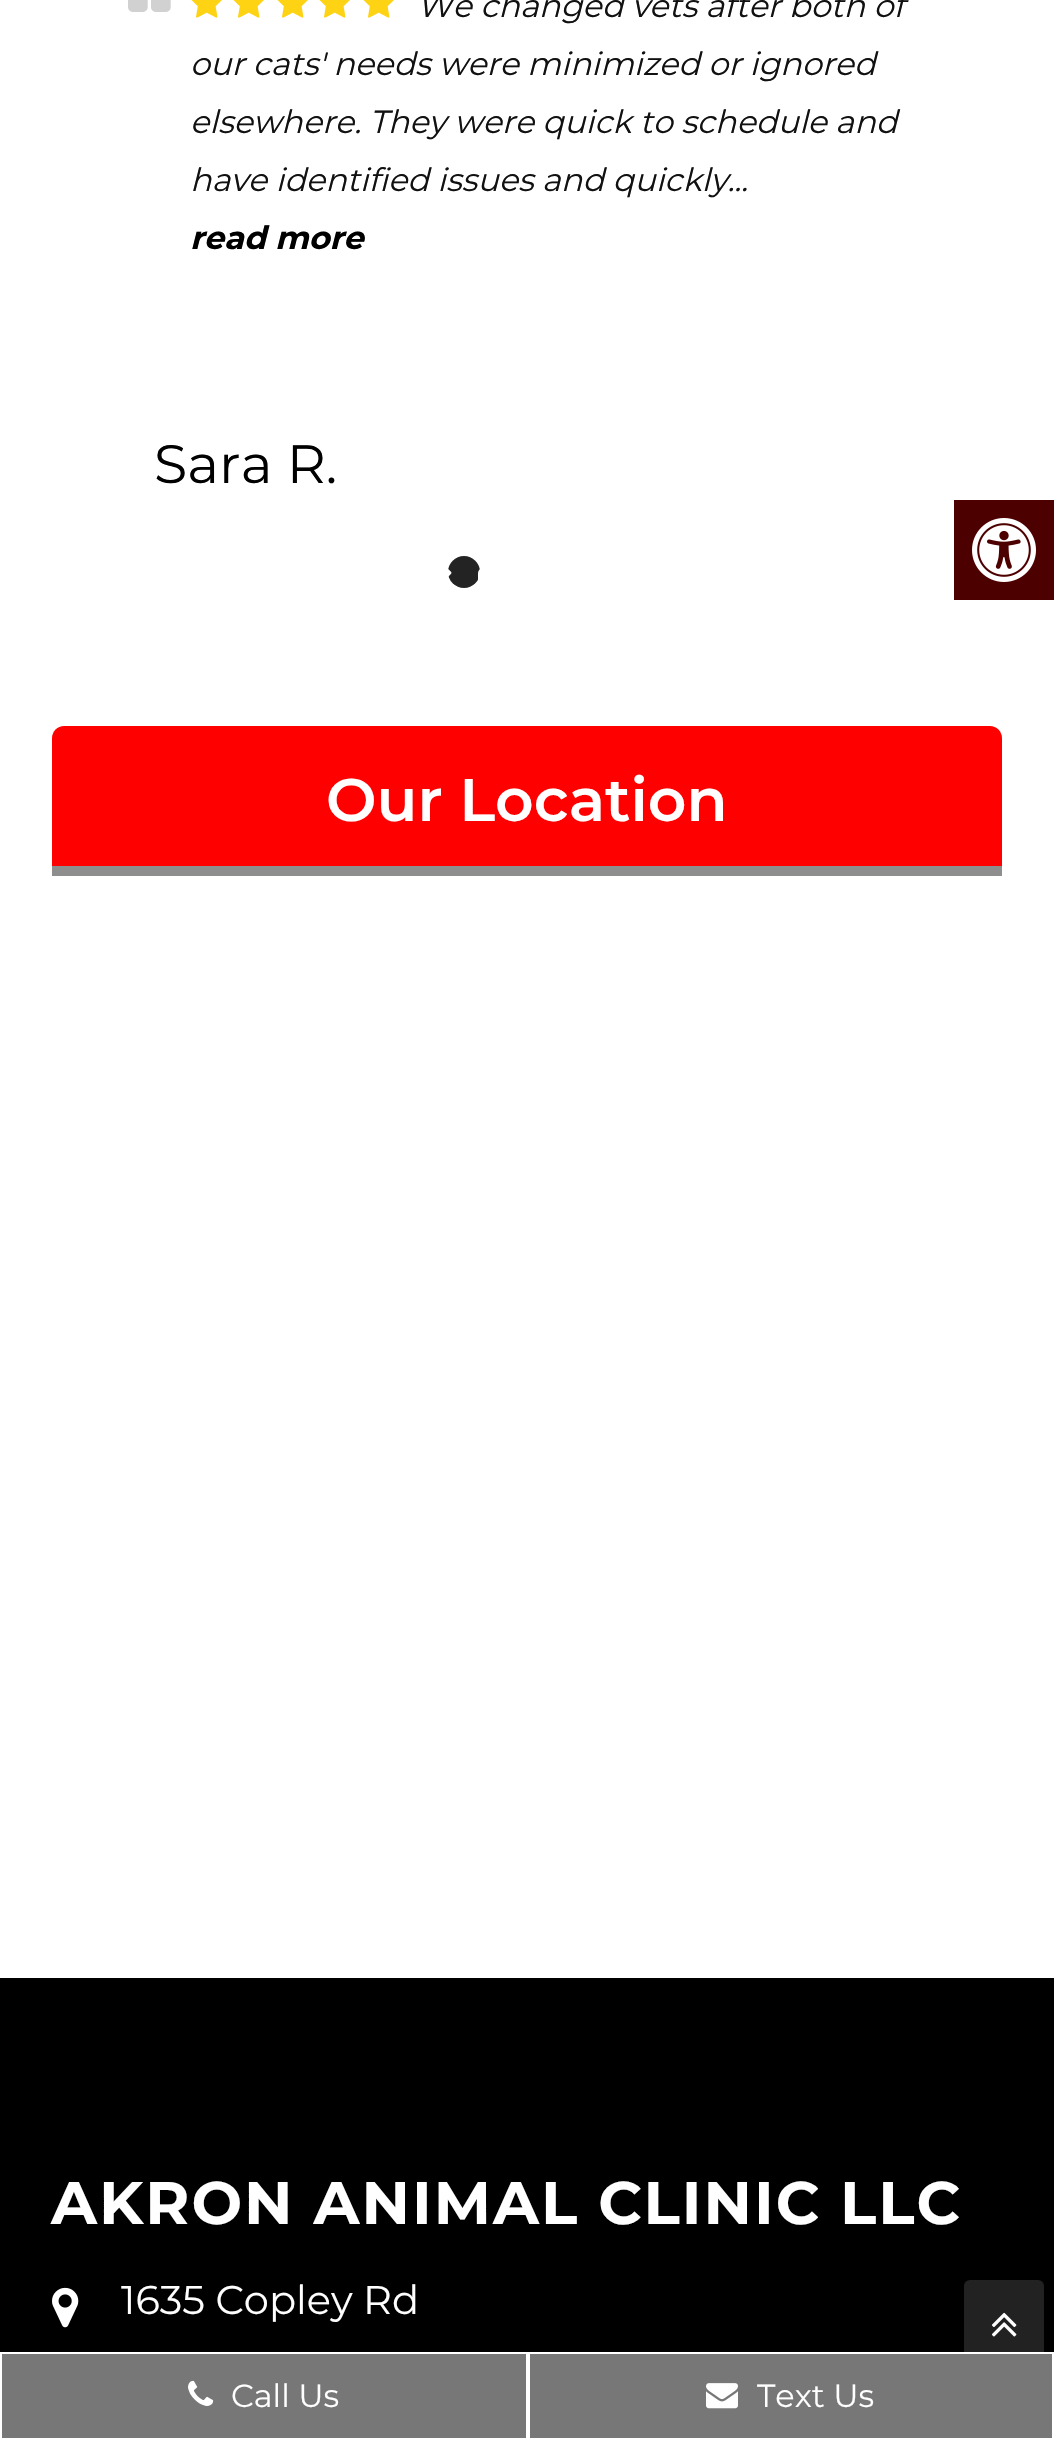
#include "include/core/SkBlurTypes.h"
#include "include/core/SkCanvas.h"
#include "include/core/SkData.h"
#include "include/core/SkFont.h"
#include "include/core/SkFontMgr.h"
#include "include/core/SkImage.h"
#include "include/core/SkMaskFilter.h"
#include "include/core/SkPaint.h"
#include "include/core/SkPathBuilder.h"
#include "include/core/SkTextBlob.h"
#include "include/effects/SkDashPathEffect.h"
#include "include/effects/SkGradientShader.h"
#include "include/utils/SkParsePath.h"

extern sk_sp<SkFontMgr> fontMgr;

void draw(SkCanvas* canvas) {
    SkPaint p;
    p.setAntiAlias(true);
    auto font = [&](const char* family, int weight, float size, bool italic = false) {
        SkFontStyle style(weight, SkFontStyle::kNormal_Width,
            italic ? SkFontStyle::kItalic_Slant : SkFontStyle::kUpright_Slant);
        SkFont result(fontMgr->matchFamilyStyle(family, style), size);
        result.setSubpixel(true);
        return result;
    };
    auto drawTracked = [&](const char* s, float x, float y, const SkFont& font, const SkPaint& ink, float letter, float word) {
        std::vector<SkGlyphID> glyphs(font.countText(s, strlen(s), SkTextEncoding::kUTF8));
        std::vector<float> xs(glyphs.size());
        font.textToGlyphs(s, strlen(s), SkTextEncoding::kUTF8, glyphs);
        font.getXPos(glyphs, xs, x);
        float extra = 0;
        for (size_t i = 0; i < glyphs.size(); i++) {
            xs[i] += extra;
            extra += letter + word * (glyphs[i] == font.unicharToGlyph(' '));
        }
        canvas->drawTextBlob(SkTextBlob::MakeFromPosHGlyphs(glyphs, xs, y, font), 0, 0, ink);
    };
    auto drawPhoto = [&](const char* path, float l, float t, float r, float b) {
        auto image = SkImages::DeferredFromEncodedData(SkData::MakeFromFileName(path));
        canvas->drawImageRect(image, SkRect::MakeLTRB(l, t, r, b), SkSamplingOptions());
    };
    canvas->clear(0xFFFFFFFF);
    drawPhoto("media/1.png", 128, 0, 171, 12);
    drawPhoto("media/2.png", 191, 0, 222, 18);
    drawPhoto("media/2.png", 233, 0, 264, 18);
    drawPhoto("media/2.png", 277, 0, 308, 18);
    drawPhoto("media/2.png", 319, 0, 350, 18);
    drawPhoto("media/2.png", 363, 0, 394, 18);
    auto font1 = font("Montserrat", 400, 32, true);
    p.setColor(0xFF111111);
    {
        const struct { const char* s; float x, y; } items[] = {
            {"We changed vets after both of", 417, 17},
            {"our cats' needs were minimized or ignored", 190, 75},
            {"elsewhere. They were quick to schedule and", 190, 133},
            {"have identified issues and quickly...", 190, 191},
        };
        for (auto [s, x, y] : items) {
            canvas->drawString(s, x, y, font1, p);
        }
    }
    auto font2 = font("Montserrat", 700, 32, true);
    p.setColor(0xFF000000);
    canvas->drawString("read more", 190, 249, font2, p);
    auto font3 = font("Montserrat", 400, 54);
    canvas->drawString("Sara R.", 154, 483, font3, p);
    p.setColor(0xFF222322);
    canvas->drawCircle(464, 572, 16, p);
    drawPhoto("media/3.png", 448, 569, 452, 577);
    drawPhoto("media/4.png", 478, 569, 480, 580);
    p.setColor(0xFFFF0000);
    canvas->drawPath(SkPathBuilder().moveTo(64, 726).lineTo(990, 726).cubicTo(996.5f, 726, 1002, 731.5f, 1002, 738).lineTo(1002, 876).lineTo(52, 876).lineTo(52, 738).cubicTo(52, 731.5f, 57.5f, 726, 64, 726).close().detach(), p);
    p.setColor(0xFF8E8E8E);
    canvas->drawRect(SkRect::MakeLTRB(52, 866, 1002, 876), p);
    auto font4 = font("Montserrat", 600, 60);
    p.setColor(0xFFFFFFFF);
    canvas->drawString("Our Location", 326, 821, font4, p);
    p.setColor(0xFF000000);
    canvas->drawRect(SkRect::MakeLTRB(0, 1978, 1054, 2352), p);
    auto font5 = font("Montserrat", 700, 60);
    p.setColor(0xFFFFFFFF);
    drawTracked("AKRON ANIMAL CLINIC LLC", 51, 2224, font5, p, 2, 0);
    drawPhoto("media/5.png", 52, 2287, 79, 2328);
    auto font6 = font("Montserrat", 400, 40);
    canvas->drawString("1635 Copley Rd", 121, 2314, font6, p);
    p.setColor(0xFF4D0000);
    canvas->drawRect(SkRect::MakeLTRB(954, 500, 1054, 600), p);
    drawPhoto("media/6.png", 972, 518, 1036, 582);
    p.setColor(0xFF222222);
    canvas->drawRoundRect(SkRect::MakeLTRB(964, 2280, 1044, 2360), 6, 6, p);
    drawPhoto("media/7.png", 991, 2312, 1017, 2337);
    p.setColor(0xFF777777);
    canvas->drawRect(SkRect::MakeLTRB(2, 2354, 526, 2438), p);
    drawPhoto("media/8.png", 188, 2380, 214, 2406);
    auto font7 = font("Montserrat", 400, 32);
    p.setColor(0xFFFFFFFF);
    canvas->drawString("Call Us", 231, 2407, font7, p);
    p.setColor(0xFF777777);
    canvas->drawRect(SkRect::MakeLTRB(529, 2353, 1053, 2439), p);
    p.setStyle(SkPaint::kStroke_Style);
    p.setStrokeWidth(2);
    p.setColor(0xFFFFFFFF);
    canvas->drawRect(SkRect::MakeLTRB(529, 2353, 1053, 2439), p);
    drawPhoto("media/9.png", 706, 2383, 738, 2409);
    p.setStyle(SkPaint::kFill_Style);
    canvas->drawString("Text Us", 757, 2407, font7, p);
}
